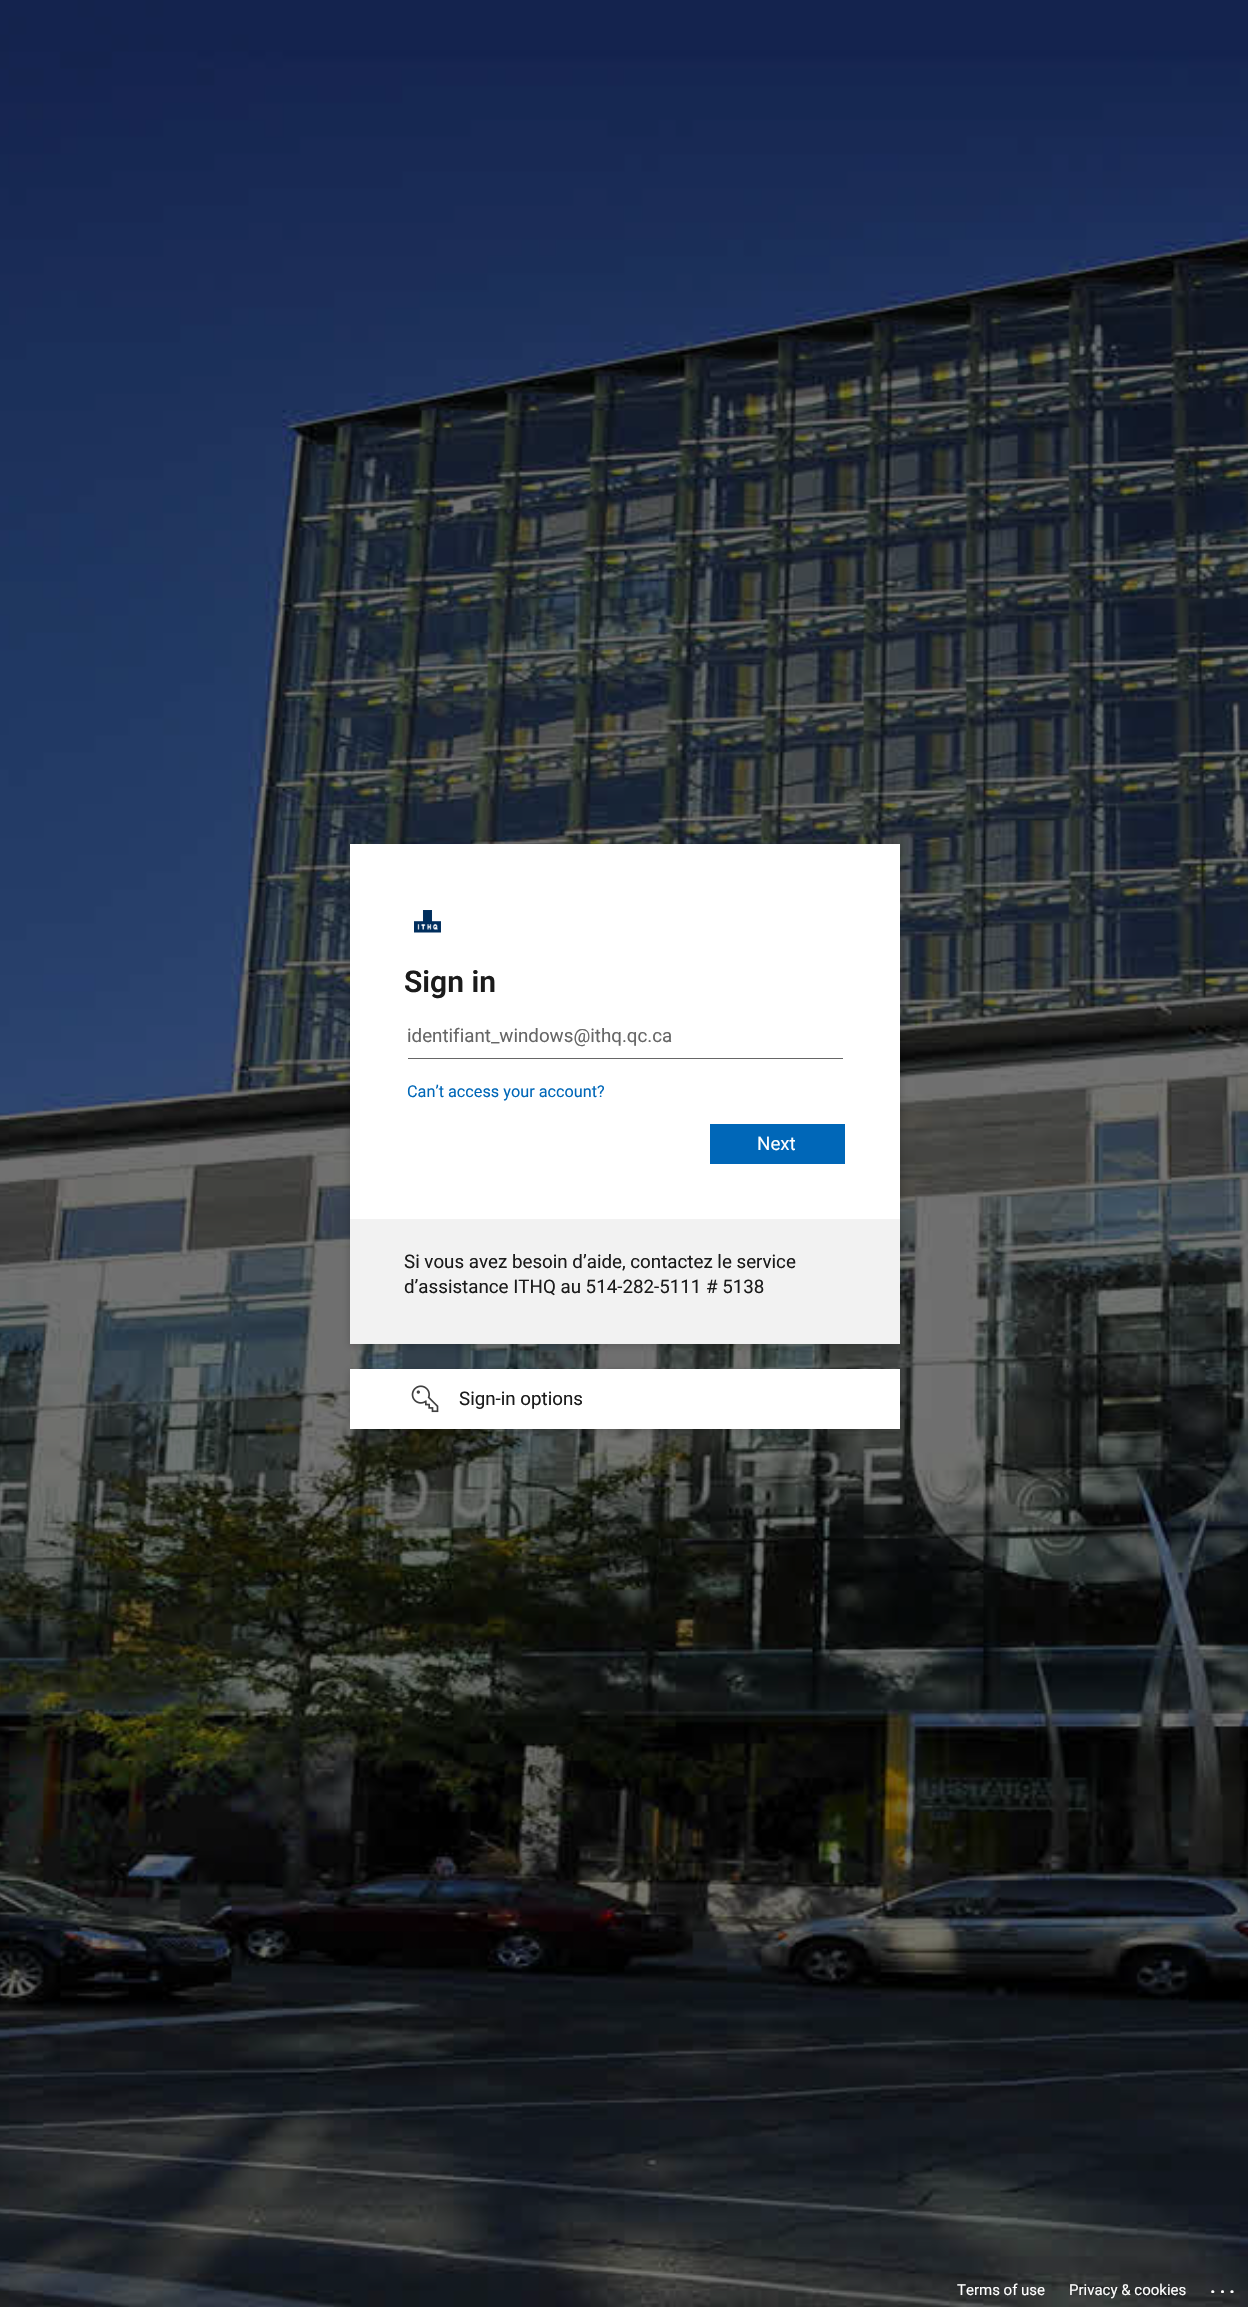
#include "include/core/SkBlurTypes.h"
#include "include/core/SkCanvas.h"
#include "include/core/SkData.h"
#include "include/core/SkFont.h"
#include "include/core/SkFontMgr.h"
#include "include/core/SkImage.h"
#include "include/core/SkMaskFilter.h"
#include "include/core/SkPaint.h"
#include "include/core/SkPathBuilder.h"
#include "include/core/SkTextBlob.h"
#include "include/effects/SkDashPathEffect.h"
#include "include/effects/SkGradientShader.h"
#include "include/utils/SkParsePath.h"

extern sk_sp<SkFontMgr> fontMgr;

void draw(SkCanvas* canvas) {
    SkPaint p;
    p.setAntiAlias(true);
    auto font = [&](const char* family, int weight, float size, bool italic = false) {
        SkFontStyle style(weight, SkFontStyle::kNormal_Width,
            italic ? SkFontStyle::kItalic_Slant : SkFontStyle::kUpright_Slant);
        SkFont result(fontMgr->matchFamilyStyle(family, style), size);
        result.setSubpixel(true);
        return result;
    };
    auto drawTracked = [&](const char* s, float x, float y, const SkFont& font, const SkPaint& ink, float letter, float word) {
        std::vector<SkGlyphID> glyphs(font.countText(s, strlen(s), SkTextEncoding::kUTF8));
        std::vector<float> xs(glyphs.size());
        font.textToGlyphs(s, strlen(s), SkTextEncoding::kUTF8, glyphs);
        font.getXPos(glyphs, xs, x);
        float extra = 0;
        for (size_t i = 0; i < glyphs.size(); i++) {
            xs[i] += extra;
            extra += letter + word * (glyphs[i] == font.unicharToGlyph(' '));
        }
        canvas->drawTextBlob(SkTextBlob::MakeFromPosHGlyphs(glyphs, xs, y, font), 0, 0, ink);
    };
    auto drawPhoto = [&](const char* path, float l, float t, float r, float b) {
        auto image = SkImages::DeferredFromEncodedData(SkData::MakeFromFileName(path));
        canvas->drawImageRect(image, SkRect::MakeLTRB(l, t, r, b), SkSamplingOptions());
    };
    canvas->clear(0xFFFFFFFF);
    drawPhoto("media/1.png", 0, 0, 1248, 2307);
    p.setColor(0x33000000);
    p.setMaskFilter(SkMaskFilter::MakeBlur(kNormal_SkBlurStyle, 4));
    canvas->drawRect(SkRect::MakeLTRB(350, 846, 900, 1346), p);
    p.setMaskFilter(nullptr);
    p.setColor(0xFFFFFFFF);
    canvas->drawRect(SkRect::MakeLTRB(350, 844, 900, 1219), p);
    drawPhoto("media/2.png", 414, 910, 441, 933);
    auto font1 = font("Roboto", 600, 30);
    p.setColor(0xFF1B1B1B);
    canvas->drawString("Sign in", 404, 992, font1, p);
    p.setColor(0xFF666666);
    canvas->drawRect(SkRect::MakeLTRB(408, 1058, 843, 1059), p);
    auto font2 = font("Roboto", 400, 18.75f);
    canvas->drawString("identifiant_windows@ithq.qc.ca", 407, 1042, font2, p);
    auto font3 = font("Roboto", 400, 16.25f);
    p.setColor(0xFF0067B8);
    canvas->drawString("Can’t access your account?", 407, 1097, font3, p);
    canvas->drawRect(SkRect::MakeLTRB(710, 1124, 845, 1164), p);
    p.setColor(0xFFFFFFFF);
    canvas->drawString("Next", 757, 1150, font2, p);
    p.setColor(0xFFF2F2F2);
    canvas->drawRect(SkRect::MakeLTRB(350, 1219, 900, 1344), p);
    p.setColor(0xFF1B1B1B);
    canvas->drawString("Si vous avez besoin d’aide, contactez le service", 404, 1268, font2, p);
    canvas->drawString("d’assistance ITHQ au 514-282-5111 # 5138", 404, 1293, font2, p);
    p.setColor(0x33000000);
    p.setMaskFilter(SkMaskFilter::MakeBlur(kNormal_SkBlurStyle, 4));
    canvas->drawRect(SkRect::MakeLTRB(350, 1371, 900, 1431), p);
    p.setMaskFilter(nullptr);
    p.setColor(0xFFFFFFFF);
    canvas->drawRect(SkRect::MakeLTRB(350, 1369, 900, 1429), p);
    drawPhoto("media/3.png", 411, 1385, 439, 1413);
    p.setColor(0xFF1B1B1B);
    canvas->drawString("Sign-in options", 459, 1405, font2, p);
    auto font4 = font("Roboto", 400, 15);
    p.setColor(0xFFFFFFFF);
    canvas->drawString("Terms of use", 957, 2295, font4, p);
    canvas->drawString("Privacy & cookies", 1069, 2295, font4, p);
    auto font5 = font("Roboto", 600, 20);
    drawTracked("...", 1210, 2293, font5, p, 4, 0);
}
